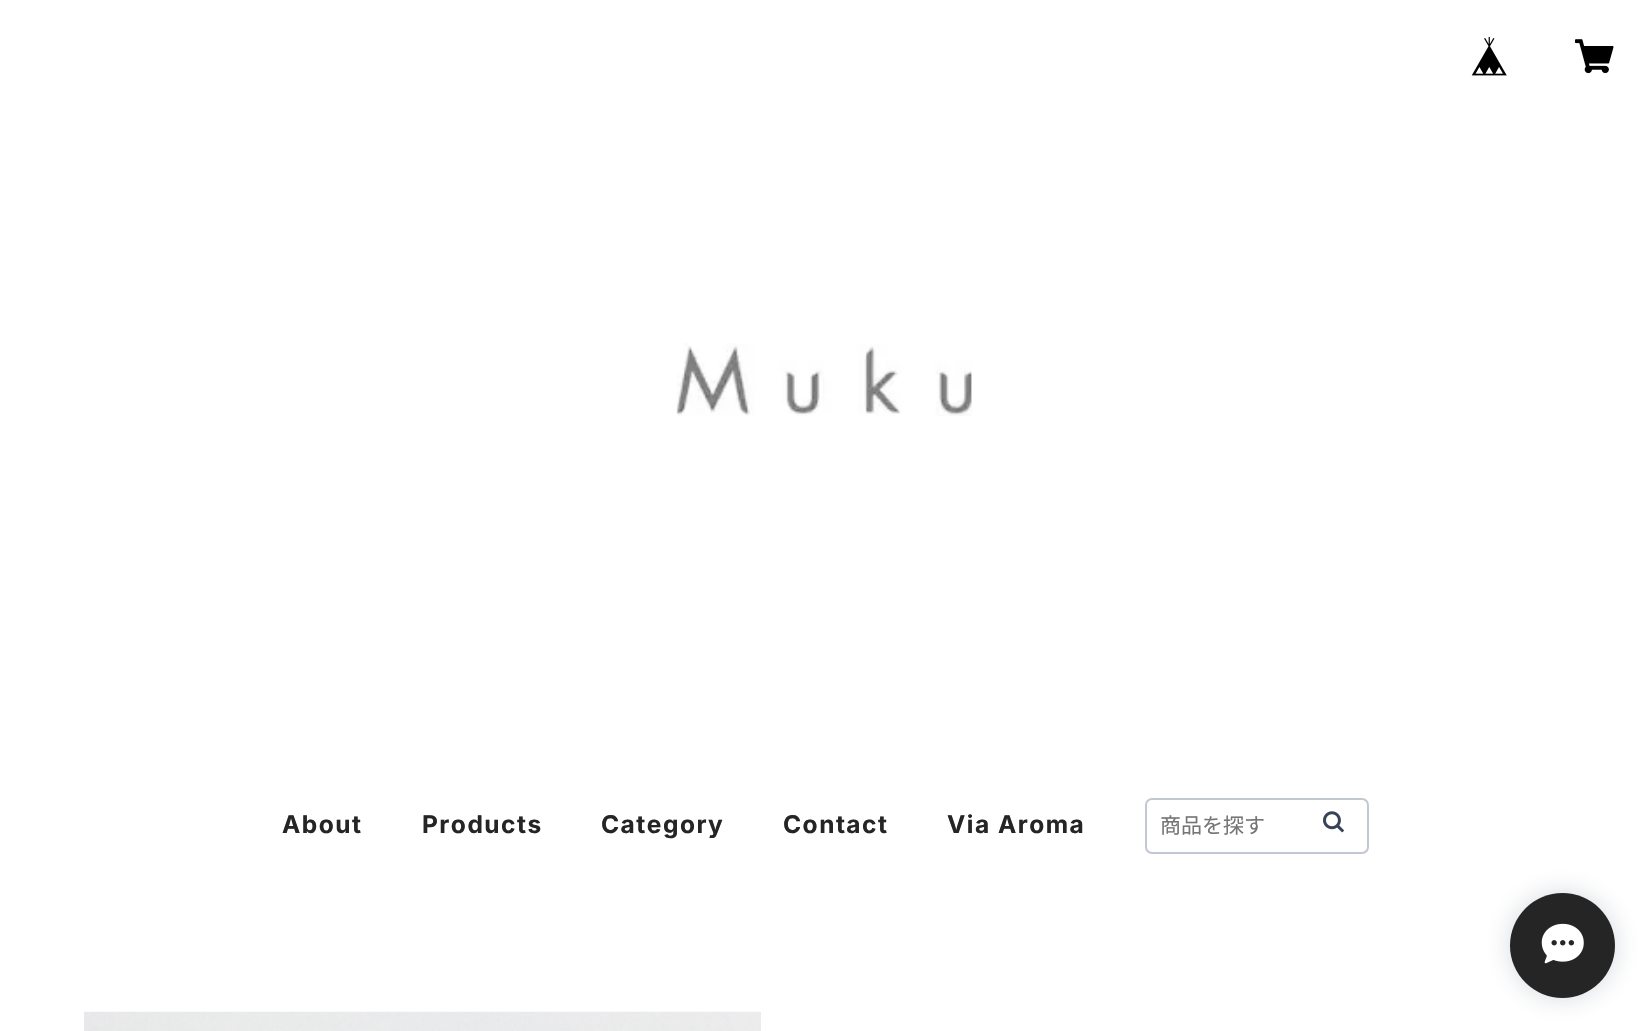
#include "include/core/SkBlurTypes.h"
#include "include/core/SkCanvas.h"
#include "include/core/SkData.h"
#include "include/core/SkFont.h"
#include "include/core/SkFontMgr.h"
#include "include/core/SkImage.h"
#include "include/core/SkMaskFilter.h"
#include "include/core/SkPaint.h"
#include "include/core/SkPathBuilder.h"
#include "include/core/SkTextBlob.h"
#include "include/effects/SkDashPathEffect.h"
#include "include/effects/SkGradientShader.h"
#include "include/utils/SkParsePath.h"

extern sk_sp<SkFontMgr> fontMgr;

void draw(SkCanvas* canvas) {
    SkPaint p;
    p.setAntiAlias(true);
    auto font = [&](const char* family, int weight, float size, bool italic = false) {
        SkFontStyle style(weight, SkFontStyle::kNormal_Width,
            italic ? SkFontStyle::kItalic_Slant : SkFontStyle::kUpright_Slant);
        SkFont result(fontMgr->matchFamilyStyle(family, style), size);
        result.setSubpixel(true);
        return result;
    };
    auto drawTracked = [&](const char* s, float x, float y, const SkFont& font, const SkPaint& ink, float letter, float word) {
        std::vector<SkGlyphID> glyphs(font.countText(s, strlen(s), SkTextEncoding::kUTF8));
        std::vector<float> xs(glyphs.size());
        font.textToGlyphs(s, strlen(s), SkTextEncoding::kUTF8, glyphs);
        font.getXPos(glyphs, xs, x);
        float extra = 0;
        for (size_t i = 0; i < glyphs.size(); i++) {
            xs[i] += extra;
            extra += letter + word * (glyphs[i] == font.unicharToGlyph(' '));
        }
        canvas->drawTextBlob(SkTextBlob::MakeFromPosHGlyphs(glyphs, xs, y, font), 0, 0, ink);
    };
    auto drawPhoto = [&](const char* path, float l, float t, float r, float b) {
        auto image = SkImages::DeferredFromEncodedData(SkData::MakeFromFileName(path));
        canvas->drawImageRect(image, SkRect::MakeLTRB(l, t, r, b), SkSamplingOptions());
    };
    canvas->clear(0xFFFFFFFF);
    drawPhoto("media/1.png", 1471, 36, 1507, 76);
    drawPhoto("media/2.png", 1575, 39, 1614, 74);
    drawPhoto("media/3.png", 676, 343, 972, 416);
    auto font1 = font("Inter", 700, 24.5f);
    p.setColor(0xFF252525);
    {
        const struct { const char* s; float x, y; } items[] = {
            {"About", 282, 833},
            {"Products", 422, 833},
            {"Category", 601, 833},
            {"Contact", 783, 833},
            {"Via Aroma", 947, 833},
        };
        for (auto [s, x, y] : items) {
            drawTracked(s, x, y, font1, p, 1.5f, 0);
        }
    }
    p.setStyle(SkPaint::kStroke_Style);
    p.setStrokeWidth(2);
    p.setColor(0xFFC2C8D2);
    canvas->drawRoundRect(SkRect::MakeLTRB(1146, 799, 1368, 853), 6, 6, p);
    auto font2 = font("Noto Sans JP", 400, 21);
    p.setStyle(SkPaint::kFill_Style);
    p.setColor(0xFF757575);
    canvas->drawString("商品を探す", 1160, 833, font2, p);
    drawPhoto("media/4.png", 1323, 811, 1344, 833);
    drawPhoto("media/5.png", 84, 1011, 761, 1031);
    p.setColor(0x33334258);
    p.setMaskFilter(SkMaskFilter::MakeBlur(kNormal_SkBlurStyle, 13));
    canvas->drawRoundRect(SkRect::MakeLTRB(1510, 893, 1615, 998), 52.5f, 52.5f, p);
    p.setMaskFilter(nullptr);
    p.setColor(0xFF252525);
    canvas->drawCircle(1562.5f, 945.5f, 52.5f, p);
    drawPhoto("media/6.png", 1541, 923, 1584, 964);
}
